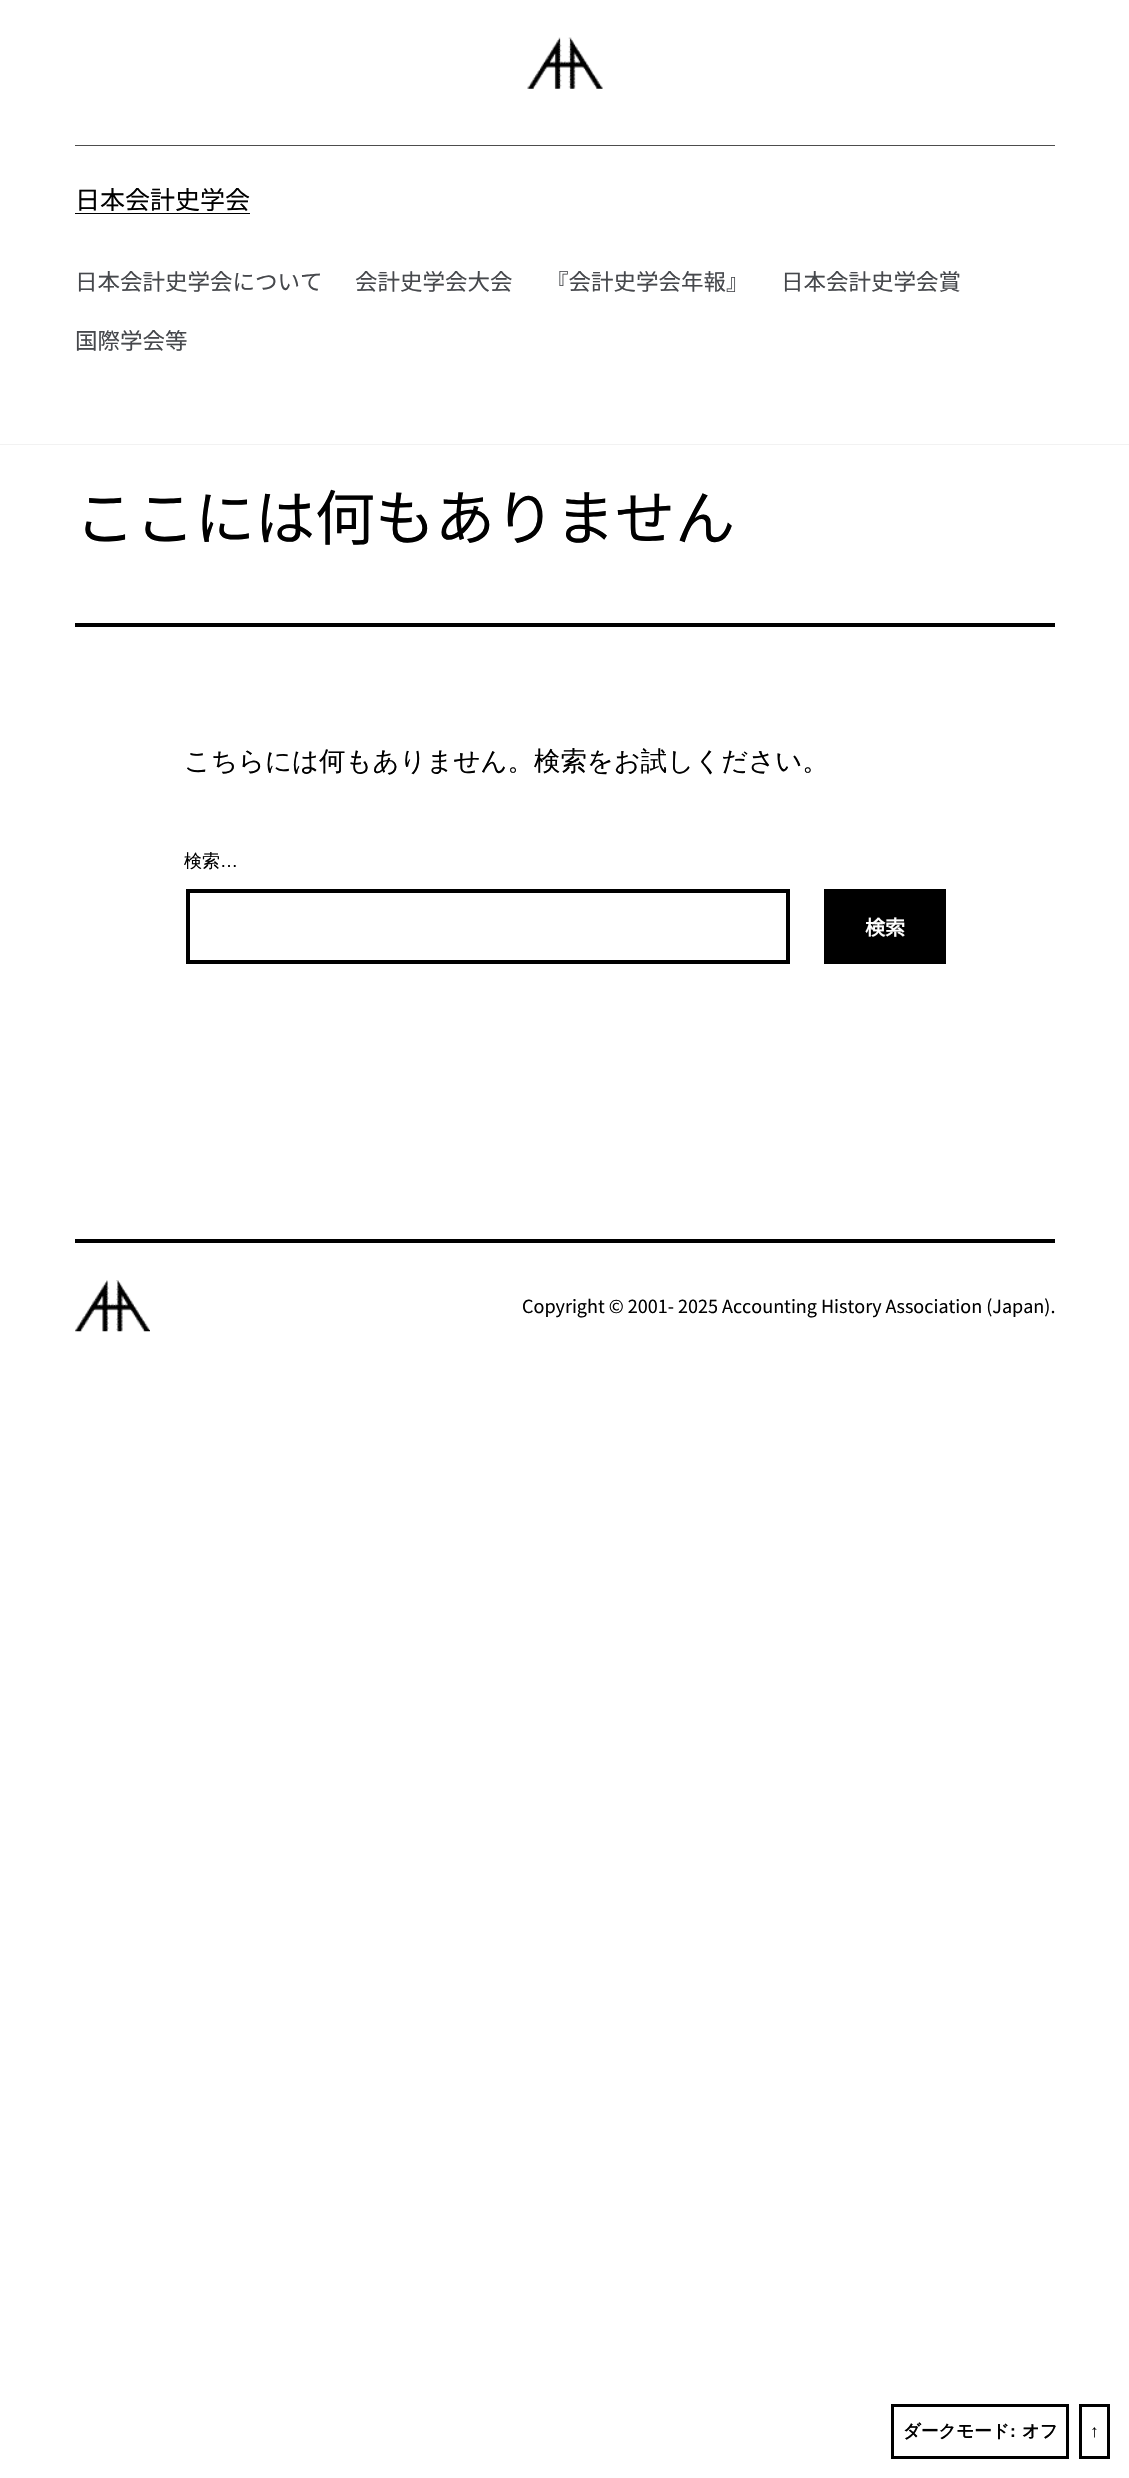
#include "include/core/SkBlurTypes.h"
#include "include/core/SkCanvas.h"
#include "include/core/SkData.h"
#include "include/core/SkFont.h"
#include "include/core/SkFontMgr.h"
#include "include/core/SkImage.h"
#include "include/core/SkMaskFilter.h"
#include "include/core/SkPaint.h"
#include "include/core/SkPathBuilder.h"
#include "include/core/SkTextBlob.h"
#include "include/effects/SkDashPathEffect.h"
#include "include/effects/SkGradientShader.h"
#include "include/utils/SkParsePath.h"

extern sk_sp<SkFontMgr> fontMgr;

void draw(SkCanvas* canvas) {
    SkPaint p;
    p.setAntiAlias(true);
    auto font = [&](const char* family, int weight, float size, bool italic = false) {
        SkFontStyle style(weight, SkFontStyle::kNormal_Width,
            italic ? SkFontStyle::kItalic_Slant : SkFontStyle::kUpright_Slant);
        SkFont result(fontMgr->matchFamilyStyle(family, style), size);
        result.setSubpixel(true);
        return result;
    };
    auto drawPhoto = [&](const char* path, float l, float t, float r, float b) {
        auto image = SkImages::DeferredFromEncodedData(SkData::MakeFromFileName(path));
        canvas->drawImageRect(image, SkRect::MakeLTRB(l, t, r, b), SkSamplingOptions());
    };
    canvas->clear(0xFFFFFFFF);
    p.setColor(0xFF000000);
    canvas->drawRect(SkRect::MakeLTRB(75, 145, 1055, 146), p);
    canvas->save();
    canvas->clipPath(SkPathBuilder(SkPathFillType::kEvenOdd).moveTo(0, 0).lineTo(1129, 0).lineTo(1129, 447).lineTo(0, 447).close().moveTo(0, 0).lineTo(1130, 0).lineTo(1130, 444).lineTo(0, 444).close().detach(), true);
    p.setColor(0x4D000000);
    p.setMaskFilter(SkMaskFilter::MakeBlur(kNormal_SkBlurStyle, 0.5f));
    canvas->drawRect(SkRect::MakeLTRB(0, 0, 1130, 444), p);
    p.setMaskFilter(nullptr);
    canvas->restore();
    p.setColor(0x4DFFFFFF);
    canvas->drawRect(SkRect::MakeLTRB(0, 145, 1129, 444), p);
    drawPhoto("media/1.png", 527, 37, 603, 89);
    auto font1 = font("Noto Sans JP", 100, 25);
    p.setColor(0xFF000000);
    canvas->drawString("日本会計史学会", 75, 209, font1, p);
    canvas->drawRect(SkRect::MakeLTRB(75, 213, 250, 214), p);
    auto font2 = font("Noto Sans JP", 100, 22.5f);
    p.setColor(0xFF46484C);
    {
        const struct { const char* s; float x, y; } items[] = {
            {"日本会計史学会について", 75, 290},
            {"会計史学会大会", 355, 290},
            {"『会計史学会年報』", 546, 290},
            {"日本会計史学会賞", 781, 290},
            {"国際学会等", 75, 349},
        };
        for (auto [s, x, y] : items) {
            canvas->drawString(s, x, y, font2, p);
        }
    }
    p.setColor(0xFF000000);
    canvas->drawRect(SkRect::MakeLTRB(75, 623, 1055, 627), p);
    auto font3 = font("Noto Sans JP", 100, 60);
    canvas->drawString("ここには何もありません", 75, 540, font3, p);
    auto font4 = font("WenQuanYi Zen Hei", 500, 26.4f);
    canvas->drawString("こちらには何もありません。検索をお試しください。", 184, 770, font4, p);
    auto font5 = font("WenQuanYi Zen Hei", 500, 18);
    canvas->drawString("検索", 184, 867, font5, p);
    auto font6 = font("Liberation Sans", 400, 18);
    canvas->drawString("…", 220, 867, font6, p);
    p.setStyle(SkPaint::kStroke_Style);
    p.setStrokeWidth(4);
    canvas->drawRect(SkRect::MakeLTRB(188, 891, 788, 962), p);
    p.setStyle(SkPaint::kFill_Style);
    canvas->drawRect(SkRect::MakeLTRB(824, 889, 946, 964), p);
    auto font7 = font("Noto Sans JP", 700, 20);
    p.setColor(0xFFFFFFFF);
    canvas->drawString("検索", 865, 935, font7, p);
    p.setColor(0xFF000000);
    canvas->drawRect(SkRect::MakeLTRB(75, 1239, 1055, 1243), p);
    drawPhoto("media/2.png", 75, 1280, 150, 1332);
    auto font8 = font("Noto Sans JP", 100, 18);
    canvas->drawString("Copyright © 2001- 2025 Accounting History Association (Japan).", 522, 1313, font8, p);
    p.setStyle(SkPaint::kStroke_Style);
    p.setStrokeWidth(3);
    canvas->drawRect(SkRect::MakeLTRB(892.5f, 2405.5f, 1067.5f, 2457.5f), p);
    auto font9 = font("WenQuanYi Zen Hei", 700, 17.5f);
    p.setStyle(SkPaint::kFill_Style);
    canvas->drawString("ダークモード", 903, 2437, font9, p);
    auto font10 = font("Liberation Sans", 700, 17.5f);
    canvas->drawString(":", 1010, 2437, font10, p);
    canvas->drawString("オフ", 1022, 2437, font9, p);
    p.setStyle(SkPaint::kStroke_Style);
    canvas->drawRect(SkRect::MakeLTRB(1080.5f, 2405.5f, 1108.5f, 2457.5f), p);
    p.setStyle(SkPaint::kFill_Style);
    canvas->drawString("↑", 1090, 2437, font10, p);
}
